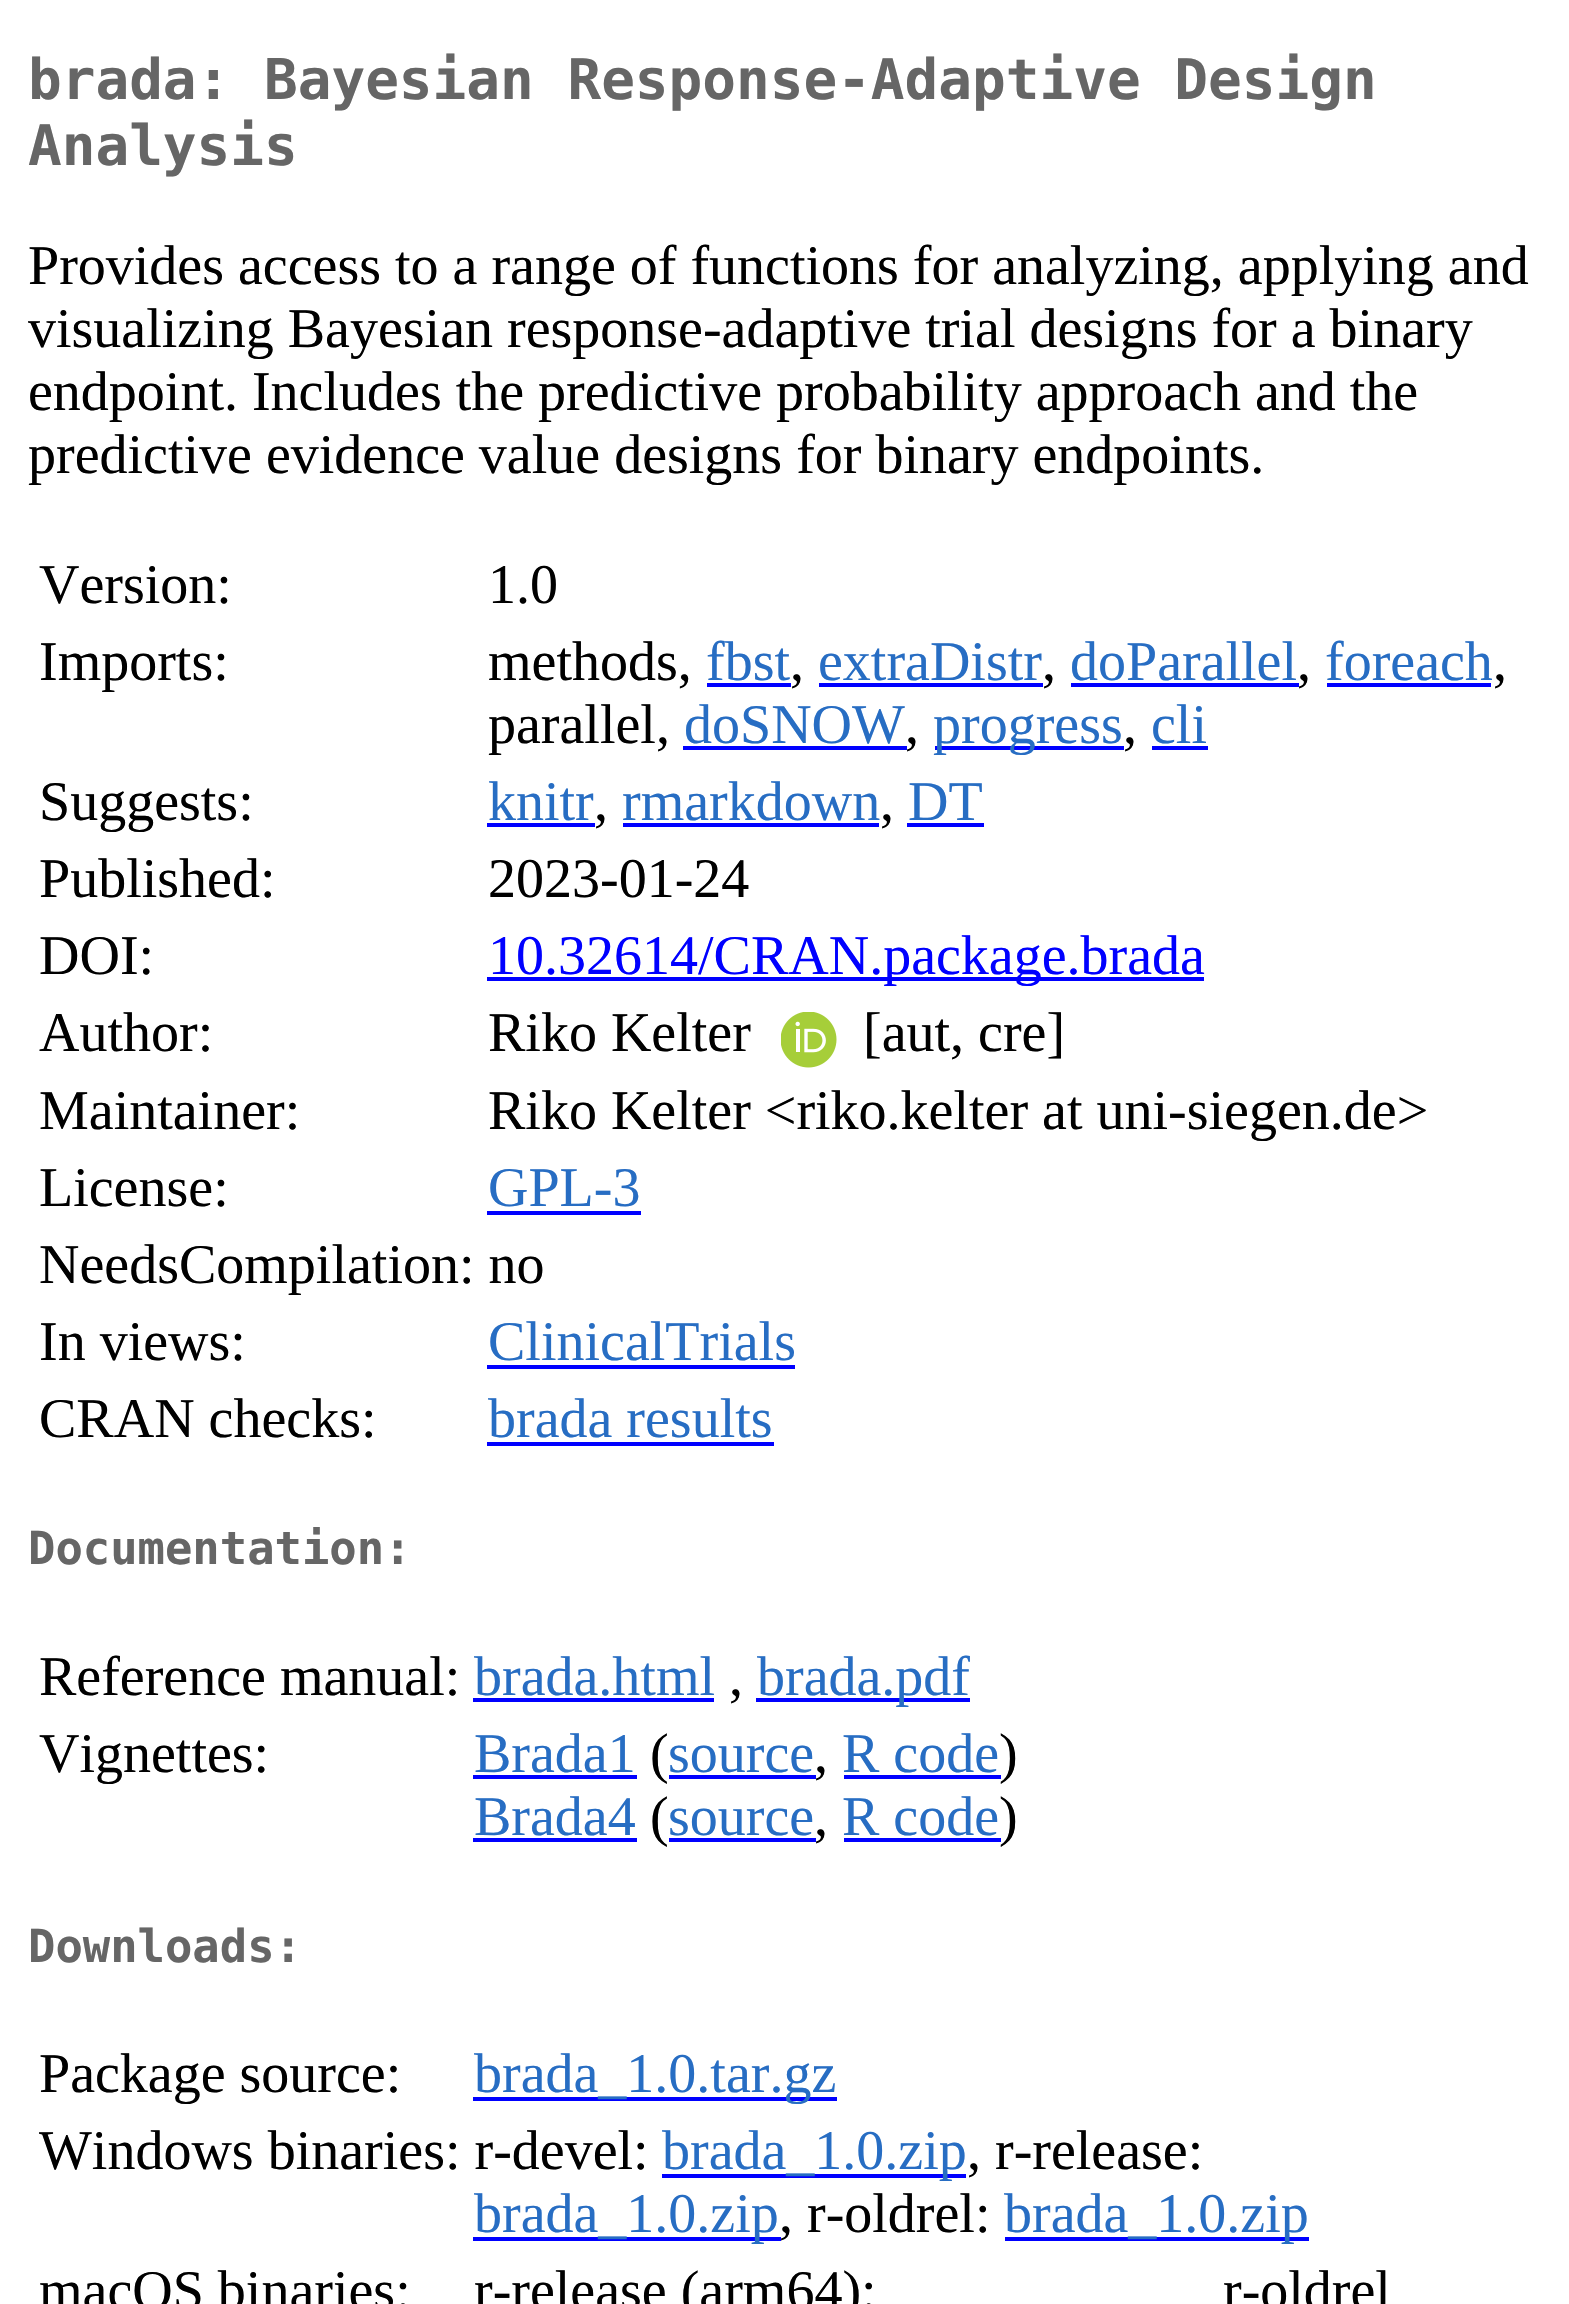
#include "include/core/SkBlurTypes.h"
#include "include/core/SkCanvas.h"
#include "include/core/SkData.h"
#include "include/core/SkFont.h"
#include "include/core/SkFontMgr.h"
#include "include/core/SkImage.h"
#include "include/core/SkMaskFilter.h"
#include "include/core/SkPaint.h"
#include "include/core/SkPathBuilder.h"
#include "include/core/SkTextBlob.h"
#include "include/effects/SkDashPathEffect.h"
#include "include/effects/SkGradientShader.h"
#include "include/utils/SkParsePath.h"

extern sk_sp<SkFontMgr> fontMgr;

void draw(SkCanvas* canvas) {
    SkPaint p;
    p.setAntiAlias(true);
    auto font = [&](const char* family, int weight, float size, bool italic = false) {
        SkFontStyle style(weight, SkFontStyle::kNormal_Width,
            italic ? SkFontStyle::kItalic_Slant : SkFontStyle::kUpright_Slant);
        SkFont result(fontMgr->matchFamilyStyle(family, style), size);
        result.setSubpixel(true);
        return result;
    };
    auto drawPhoto = [&](const char* path, float l, float t, float r, float b) {
        auto image = SkImages::DeferredFromEncodedData(SkData::MakeFromFileName(path));
        canvas->drawImageRect(image, SkRect::MakeLTRB(l, t, r, b), SkSamplingOptions());
    };
    canvas->clear(0xFFFFFFFF);
    auto font1 = font("DejaVu Sans Mono", 700, 56);
    p.setColor(0xFF666666);
    canvas->drawString("brada: Bayesian Response-Adaptive Design", 28, 99, font1, p);
    canvas->drawString("Analysis", 28, 165, font1, p);
    auto font2 = font("Liberation Serif", 400, 56);
    p.setColor(0xFF000000);
    {
        const struct { const char* s; float x, y; } items[] = {
            {"Provides access to a range of functions for analyzing, applying and", 28, 284},
            {"visualizing Bayesian response-adaptive trial designs for a binary", 28, 347},
            {"endpoint. Includes the predictive probability approach and the", 28, 410},
            {"predictive evidence value designs for binary endpoints.", 28, 473},
            {"Version:", 39, 603},
            {"1.0", 488, 603},
            {"Imports:", 39, 680},
            {"methods,", 488, 680},
        };
        for (auto [s, x, y] : items) {
            canvas->drawString(s, x, y, font2, p);
        }
    }
    p.setColor(0xFF276DC3);
    canvas->drawString("fbst", 706, 680, font2, p);
    p.setColor(0xFF0000FF);
    canvas->drawRect(SkRect::MakeLTRB(707, 683, 791, 687), p);
    p.setColor(0xFF000000);
    canvas->drawString(",", 790, 680, font2, p);
    p.setColor(0xFF276DC3);
    canvas->drawString("extraDistr", 818, 680, font2, p);
    p.setColor(0xFF0000FF);
    canvas->drawRect(SkRect::MakeLTRB(819, 683, 1043, 687), p);
    p.setColor(0xFF000000);
    canvas->drawString(",", 1042, 680, font2, p);
    p.setColor(0xFF276DC3);
    canvas->drawString("doParallel", 1070, 680, font2, p);
    p.setColor(0xFF0000FF);
    canvas->drawRect(SkRect::MakeLTRB(1071, 683, 1299, 687), p);
    p.setColor(0xFF000000);
    canvas->drawString(",", 1297, 680, font2, p);
    p.setColor(0xFF276DC3);
    canvas->drawString("foreach", 1325, 680, font2, p);
    p.setColor(0xFF0000FF);
    canvas->drawRect(SkRect::MakeLTRB(1327, 683, 1491, 687), p);
    p.setColor(0xFF000000);
    canvas->drawString(",", 1493, 680, font2, p);
    canvas->drawString("parallel,", 488, 743, font2, p);
    p.setColor(0xFF276DC3);
    canvas->drawString("doSNOW", 684, 743, font2, p);
    p.setColor(0xFF0000FF);
    canvas->drawRect(SkRect::MakeLTRB(683, 746, 907, 750), p);
    p.setColor(0xFF000000);
    canvas->drawString(",", 905, 743, font2, p);
    p.setColor(0xFF0000FF);
    canvas->drawRect(SkRect::MakeLTRB(935, 746, 1124, 750), p);
    p.setColor(0xFF276DC3);
    canvas->drawString("progress", 933, 743, font2, p);
    p.setColor(0xFF000000);
    canvas->drawString(",", 1123, 743, font2, p);
    p.setColor(0xFF276DC3);
    canvas->drawString("cli", 1151, 743, font2, p);
    p.setColor(0xFF0000FF);
    canvas->drawRect(SkRect::MakeLTRB(1152, 746, 1208, 750), p);
    p.setColor(0xFF000000);
    canvas->drawString("Suggests:", 39, 820, font2, p);
    p.setColor(0xFF276DC3);
    canvas->drawString("knitr", 488, 820, font2, p);
    p.setColor(0xFF0000FF);
    canvas->drawRect(SkRect::MakeLTRB(487, 823, 595, 827), p);
    p.setColor(0xFF000000);
    canvas->drawString(",", 594, 820, font2, p);
    p.setColor(0xFF276DC3);
    canvas->drawString("rmarkdown", 622, 820, font2, p);
    p.setColor(0xFF0000FF);
    canvas->drawRect(SkRect::MakeLTRB(623, 823, 879, 827), p);
    p.setColor(0xFF000000);
    canvas->drawString(",", 880, 820, font2, p);
    p.setColor(0xFF276DC3);
    canvas->drawString("DT", 908, 820, font2, p);
    p.setColor(0xFF0000FF);
    canvas->drawRect(SkRect::MakeLTRB(907, 823, 984, 827), p);
    p.setColor(0xFF000000);
    {
        const struct { const char* s; float x, y; } items[] = {
            {"Published:", 39, 897},
            {"2023-01-24", 488, 897},
            {"DOI:", 39, 974},
        };
        for (auto [s, x, y] : items) {
            canvas->drawString(s, x, y, font2, p);
        }
    }
    p.setColor(0xFF0000FF);
    canvas->drawRect(SkRect::MakeLTRB(487, 977, 1204, 981), p);
    canvas->drawString("10.32614/CRAN.package.brada", 488, 974, font2, p);
    p.setColor(0xFF000000);
    canvas->drawString("Author:", 39, 1051, font2, p);
    canvas->drawString("Riko Kelter", 488, 1051, font2, p);
    drawPhoto("media/1.png", 781, 1012, 837, 1068);
    {
        const struct { const char* s; float x, y; } items[] = {
            {"[aut, cre]", 863, 1051},
            {"Maintainer:", 39, 1129},
            {"Riko Kelter <riko.kelter at uni-siegen.de>", 488, 1129},
            {"License:", 39, 1206},
        };
        for (auto [s, x, y] : items) {
            canvas->drawString(s, x, y, font2, p);
        }
    }
    p.setColor(0xFF276DC3);
    canvas->drawString("GPL-3", 488, 1206, font2, p);
    p.setColor(0xFF0000FF);
    canvas->drawRect(SkRect::MakeLTRB(487, 1211, 641, 1215), p);
    p.setColor(0xFF000000);
    canvas->drawString("NeedsCompilation: no", 39, 1283, font2, p);
    canvas->drawString("In views:", 39, 1360, font2, p);
    p.setColor(0xFF276DC3);
    canvas->drawString("ClinicalTrials", 488, 1360, font2, p);
    p.setColor(0xFF0000FF);
    canvas->drawRect(SkRect::MakeLTRB(487, 1365, 795, 1369), p);
    p.setColor(0xFF000000);
    canvas->drawString("CRAN checks:", 39, 1437, font2, p);
    p.setColor(0xFF276DC3);
    canvas->drawString("brada results", 488, 1437, font2, p);
    p.setColor(0xFF0000FF);
    canvas->drawRect(SkRect::MakeLTRB(487, 1442, 774, 1446), p);
    auto font3 = font("DejaVu Sans Mono", 700, 45.5f);
    p.setColor(0xFF666666);
    canvas->drawString("Documentation:", 28, 1564, font3, p);
    p.setColor(0xFF000000);
    canvas->drawString("Reference manual:", 39, 1695, font2, p);
    p.setColor(0xFF276DC3);
    canvas->drawString("brada.html", 474, 1695, font2, p);
    p.setColor(0xFF0000FF);
    canvas->drawRect(SkRect::MakeLTRB(473, 1698, 714, 1702), p);
    p.setColor(0xFF000000);
    canvas->drawString(",", 729, 1695, font2, p);
    p.setColor(0xFF0000FF);
    canvas->drawRect(SkRect::MakeLTRB(756, 1698, 970, 1702), p);
    p.setColor(0xFF276DC3);
    canvas->drawString("brada.pdf", 757, 1695, font2, p);
    p.setColor(0xFF000000);
    canvas->drawString("Vignettes:", 39, 1772, font2, p);
    p.setColor(0xFF276DC3);
    canvas->drawString("Brada1", 474, 1772, font2, p);
    p.setColor(0xFF0000FF);
    canvas->drawRect(SkRect::MakeLTRB(473, 1775, 637, 1779), p);
    p.setColor(0xFF000000);
    canvas->drawString("(", 650, 1772, font2, p);
    p.setColor(0xFF276DC3);
    canvas->drawString("source", 668, 1772, font2, p);
    p.setColor(0xFF0000FF);
    canvas->drawRect(SkRect::MakeLTRB(669, 1775, 816, 1779), p);
    p.setColor(0xFF000000);
    canvas->drawString(",", 814, 1772, font2, p);
    p.setColor(0xFF276DC3);
    canvas->drawString("R code", 842, 1772, font2, p);
    p.setColor(0xFF0000FF);
    canvas->drawRect(SkRect::MakeLTRB(844, 1775, 1001, 1779), p);
    p.setColor(0xFF000000);
    canvas->drawString(")", 999, 1772, font2, p);
    p.setColor(0xFF276DC3);
    canvas->drawString("Brada4", 474, 1835, font2, p);
    p.setColor(0xFF0000FF);
    canvas->drawRect(SkRect::MakeLTRB(473, 1838, 637, 1842), p);
    p.setColor(0xFF000000);
    canvas->drawString("(", 650, 1835, font2, p);
    p.setColor(0xFF276DC3);
    canvas->drawString("source", 668, 1835, font2, p);
    p.setColor(0xFF0000FF);
    canvas->drawRect(SkRect::MakeLTRB(669, 1838, 816, 1842), p);
    p.setColor(0xFF000000);
    canvas->drawString(",", 814, 1835, font2, p);
    p.setColor(0xFF276DC3);
    canvas->drawString("R code", 842, 1835, font2, p);
    p.setColor(0xFF0000FF);
    canvas->drawRect(SkRect::MakeLTRB(844, 1838, 1001, 1842), p);
    p.setColor(0xFF000000);
    canvas->drawString(")", 999, 1835, font2, p);
    p.setColor(0xFF666666);
    canvas->drawString("Downloads:", 28, 1962, font3, p);
    p.setColor(0xFF000000);
    canvas->drawString("Package source:", 39, 2092, font2, p);
    p.setColor(0xFF0000FF);
    canvas->drawRect(SkRect::MakeLTRB(473, 2097, 837, 2101), p);
    p.setColor(0xFF276DC3);
    canvas->drawString("brada_1.0.tar.gz", 474, 2092, font2, p);
    p.setColor(0xFF000000);
    canvas->drawString("Windows binaries: r-devel:", 39, 2169, font2, p);
    p.setColor(0xFF0000FF);
    canvas->drawRect(SkRect::MakeLTRB(662, 2174, 966, 2178), p);
    p.setColor(0xFF276DC3);
    canvas->drawString("brada_1.0.zip", 662, 2169, font2, p);
    p.setColor(0xFF000000);
    canvas->drawString(", r-release:", 967, 2169, font2, p);
    p.setColor(0xFF0000FF);
    canvas->drawRect(SkRect::MakeLTRB(473, 2237, 781, 2241), p);
    p.setColor(0xFF276DC3);
    canvas->drawString("brada_1.0.zip", 474, 2232, font2, p);
    p.setColor(0xFF000000);
    canvas->drawString(", r-oldrel:", 779, 2232, font2, p);
    p.setColor(0xFF0000FF);
    canvas->drawRect(SkRect::MakeLTRB(1005, 2237, 1309, 2241), p);
    p.setColor(0xFF276DC3);
    canvas->drawString("brada_1.0.zip", 1004, 2232, font2, p);
    p.setColor(0xFF000000);
    {
        const struct { const char* s; float x, y; } items[] = {
            {"macOS binaries:", 39, 2309},
            {"r-release (arm64):", 474, 2309},
            {"r-oldrel", 1223, 2309},
        };
        for (auto [s, x, y] : items) {
            canvas->drawString(s, x, y, font2, p);
        }
    }
}
